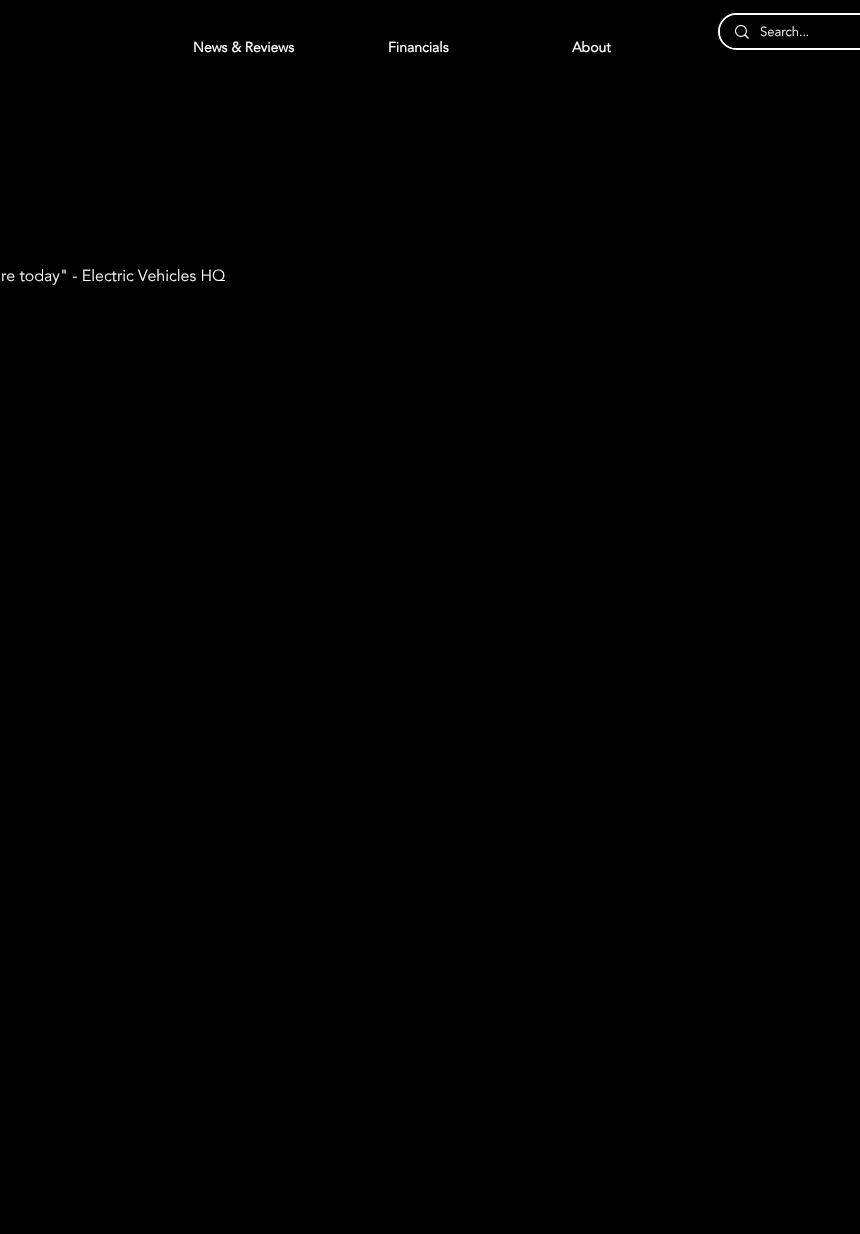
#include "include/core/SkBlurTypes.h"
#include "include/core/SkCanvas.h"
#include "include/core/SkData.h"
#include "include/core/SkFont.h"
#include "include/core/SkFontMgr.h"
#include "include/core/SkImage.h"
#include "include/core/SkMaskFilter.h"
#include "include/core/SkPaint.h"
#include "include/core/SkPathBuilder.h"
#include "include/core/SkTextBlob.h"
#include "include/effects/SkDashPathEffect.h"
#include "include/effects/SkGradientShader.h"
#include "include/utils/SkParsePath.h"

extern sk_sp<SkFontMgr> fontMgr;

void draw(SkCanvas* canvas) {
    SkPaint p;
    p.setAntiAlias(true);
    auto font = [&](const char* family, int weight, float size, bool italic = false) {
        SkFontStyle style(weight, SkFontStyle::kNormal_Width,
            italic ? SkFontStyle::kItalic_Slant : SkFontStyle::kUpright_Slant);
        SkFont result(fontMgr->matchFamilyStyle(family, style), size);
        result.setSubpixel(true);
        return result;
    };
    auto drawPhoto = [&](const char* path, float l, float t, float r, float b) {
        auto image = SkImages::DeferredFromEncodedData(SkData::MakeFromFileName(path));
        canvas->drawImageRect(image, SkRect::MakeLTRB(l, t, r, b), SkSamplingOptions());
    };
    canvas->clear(0xFF000000);
    p.setStyle(SkPaint::kStroke_Style);
    p.setStrokeWidth(2);
    p.setColor(0xFFFFFFFF);
    canvas->drawRoundRect(SkRect::MakeLTRB(719, 14, 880, 49), 17.5f, 17.5f, p);
    p.setStyle(SkPaint::kFill_Style);
    p.setColor(0xFF000000);
    canvas->drawRoundRect(SkRect::MakeLTRB(720, 15, 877, 48), 16.5f, 16.5f, p);
    drawPhoto("media/1.png", 735, 25, 749, 39);
    auto font1 = font("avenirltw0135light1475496", 300, 13);
    p.setColor(0xFFFFFFFF);
    canvas->drawString("Search...", 760, 36, font1, p);
    auto font2 = font("avenirltw0135light1475496", 700, 14);
    {
        const struct { const char* s; float x, y; } items[] = {
            {"News & Reviews", 193, 52},
            {"Financials", 388, 52},
            {"About", 572, 52},
        };
        for (auto [s, x, y] : items) {
            canvas->drawString(s, x, y, font2, p);
        }
    }
    auto font3 = font("avenirltw0135light1475496", 300, 16);
    canvas->drawString("re today\" - Electric Vehicles HQ", 1, 281, font3, p);
}
